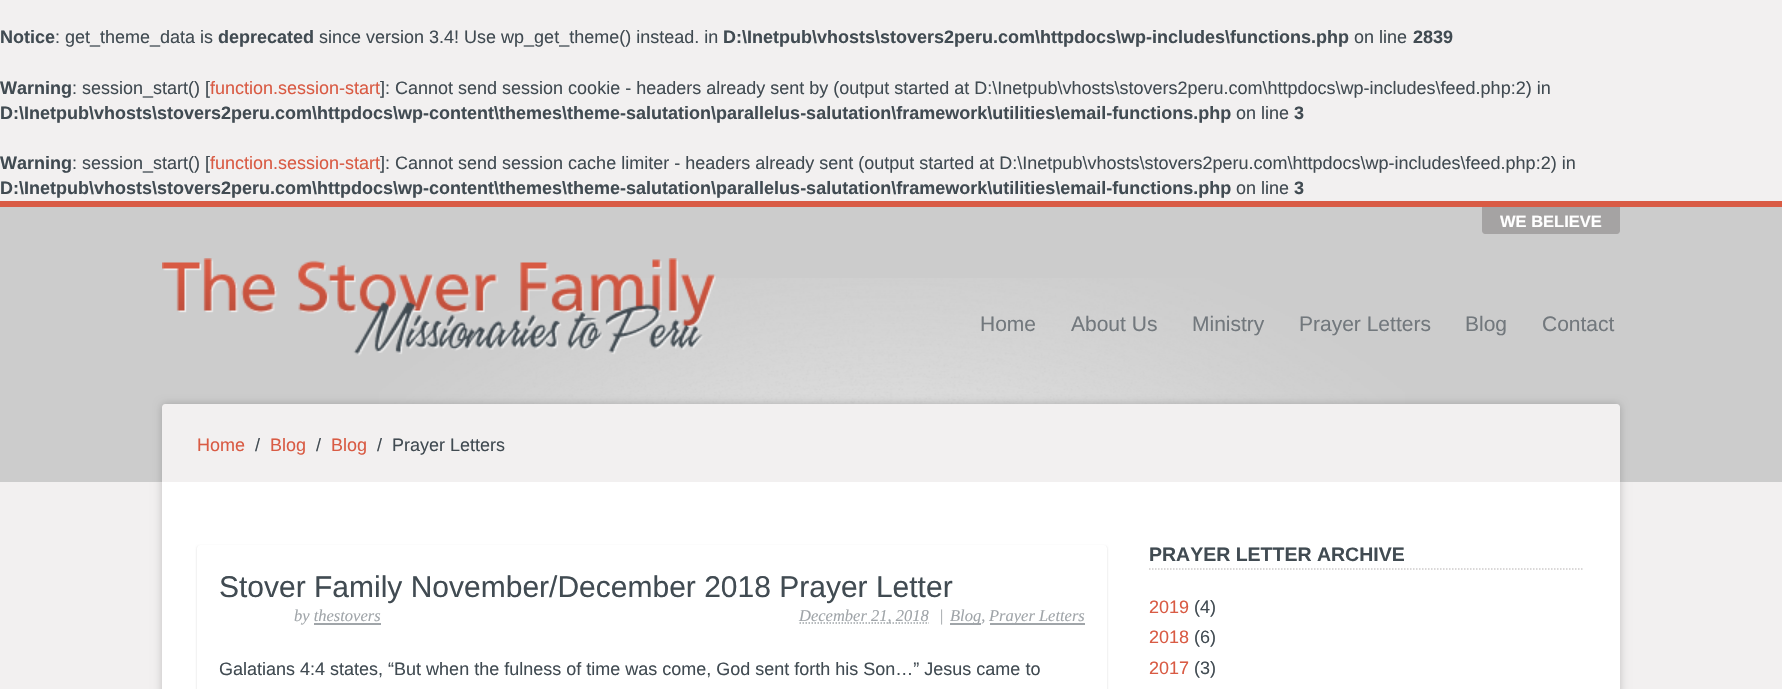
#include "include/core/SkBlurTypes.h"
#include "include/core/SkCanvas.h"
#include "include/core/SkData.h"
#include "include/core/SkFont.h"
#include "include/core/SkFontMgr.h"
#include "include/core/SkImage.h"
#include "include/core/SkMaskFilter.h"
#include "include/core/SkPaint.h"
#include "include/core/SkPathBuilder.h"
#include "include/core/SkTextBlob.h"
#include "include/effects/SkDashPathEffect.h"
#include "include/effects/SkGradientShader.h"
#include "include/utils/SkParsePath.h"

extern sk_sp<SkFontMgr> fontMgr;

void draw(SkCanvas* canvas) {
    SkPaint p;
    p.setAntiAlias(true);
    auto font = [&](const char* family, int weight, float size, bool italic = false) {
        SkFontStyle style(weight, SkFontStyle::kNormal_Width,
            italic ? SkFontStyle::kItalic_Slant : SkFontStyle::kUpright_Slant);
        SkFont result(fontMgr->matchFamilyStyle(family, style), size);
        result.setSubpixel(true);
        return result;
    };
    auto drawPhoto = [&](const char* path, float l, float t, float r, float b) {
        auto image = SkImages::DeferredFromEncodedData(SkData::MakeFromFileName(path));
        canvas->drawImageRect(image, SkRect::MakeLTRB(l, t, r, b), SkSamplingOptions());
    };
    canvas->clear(0xFFF2F0F0);
    auto font1 = font("Liberation Sans", 700, 18);
    p.setColor(0xFF414B52);
    canvas->drawString("Notice", 0, 43, font1, p);
    auto font2 = font("Liberation Sans", 400, 18);
    canvas->drawString(": get_theme_data is", 55, 43, font2, p);
    canvas->drawString("deprecated", 218, 43, font1, p);
    canvas->drawString("since version 3.4! Use wp_get_theme() instead. in", 319, 43, font2, p);
    canvas->drawString("D:\\Inetpub\\vhosts\\stovers2peru.com\\httpdocs\\wp-includes\\functions.php", 723, 43, font1, p);
    canvas->drawString("on line", 1354, 43, font2, p);
    canvas->drawString("2839", 1413, 43, font1, p);
    canvas->drawString("Warning", 0, 94, font1, p);
    canvas->drawString(": session_start() [", 72, 94, font2, p);
    p.setColor(0xFFD95B44);
    canvas->drawString("function.session-start", 210, 94, font2, p);
    p.setColor(0xFF414B52);
    canvas->drawString("]: Cannot send session cookie - headers already sent by (output started at D:\\Inetpub\\vhosts\\stovers2peru.com\\httpdocs\\wp-includes\\feed.php:2) in", 380, 94, font2, p);
    canvas->drawString("D:\\Inetpub\\vhosts\\stovers2peru.com\\httpdocs\\wp-content\\themes\\theme-salutation\\parallelus-salutation\\framework\\utilities\\email-functions.php", 0, 119, font1, p);
    canvas->drawString("on line", 1236, 119, font2, p);
    canvas->drawString("3", 1294, 119, font1, p);
    canvas->drawString("Warning", 0, 169, font1, p);
    canvas->drawString(": session_start() [", 72, 169, font2, p);
    p.setColor(0xFFD95B44);
    canvas->drawString("function.session-start", 210, 169, font2, p);
    p.setColor(0xFF414B52);
    canvas->drawString("]: Cannot send session cache limiter - headers already sent (output started at D:\\Inetpub\\vhosts\\stovers2peru.com\\httpdocs\\wp-includes\\feed.php:2) in", 380, 169, font2, p);
    canvas->drawString("D:\\Inetpub\\vhosts\\stovers2peru.com\\httpdocs\\wp-content\\themes\\theme-salutation\\parallelus-salutation\\framework\\utilities\\email-functions.php", 0, 194, font1, p);
    canvas->drawString("on line", 1236, 194, font2, p);
    canvas->drawString("3", 1294, 194, font1, p);
    p.setColor(0xFFD95B44);
    canvas->drawRect(SkRect::MakeLTRB(0, 201, 1782, 207), p);
    p.setColor(0xFFCCCCCC);
    canvas->drawRect(SkRect::MakeLTRB(0, 207, 1782, 482), p);
    drawPhoto("media/1.png", 379, 278, 1405, 404);
    p.setColor(0xFFA5A3A3);
    canvas->drawPath(SkPathBuilder().moveTo(1482, 207).lineTo(1620, 207).lineTo(1620, 231).cubicTo(1620, 232.5f, 1618.5f, 234, 1617, 234).lineTo(1485, 234).cubicTo(1483.5f, 234, 1482, 232.5f, 1482, 231).close().detach(), p);
    auto font3 = font("Liberation Sans", 700, 16.5f);
    p.setColor(0xFFFFFFFF);
    canvas->drawString("WE BELIEVE", 1500, 227, font3, p);
    drawPhoto("media/2.png", 162, 258, 716, 356);
    auto font4 = font("Liberation Sans", 400, 21);
    p.setColor(0xFF72787D);
    {
        const struct { const char* s; float x, y; } items[] = {
            {"Home", 980, 331},
            {"About Us", 1071, 331},
            {"Ministry", 1192, 331},
            {"Prayer Letters", 1299, 331},
            {"Blog", 1465, 331},
            {"Contact", 1542, 331},
        };
        for (auto [s, x, y] : items) {
            canvas->drawString(s, x, y, font4, p);
        }
    }
    canvas->save();
    canvas->clipRect(SkRect::MakeLTRB(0, 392, 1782, 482));
    p.setColor(0x33000000);
    p.setMaskFilter(SkMaskFilter::MakeBlur(kNormal_SkBlurStyle, 4.5f));
    canvas->drawRoundRect(SkRect::MakeLTRB(162, 404, 1620, 489), 3, 3, p);
    p.setMaskFilter(nullptr);
    canvas->restore();
    p.setColor(0xFFF2F0F0);
    canvas->drawPath(SkPathBuilder().moveTo(165, 404).lineTo(1617, 404).cubicTo(1618.5f, 404, 1620, 405.5f, 1620, 407).lineTo(1620, 482).lineTo(162, 482).lineTo(162, 407).cubicTo(162, 405.5f, 163.5f, 404, 165, 404).close().detach(), p);
    p.setColor(0xFFD95B44);
    canvas->drawString("Home", 197, 451, font2, p);
    p.setColor(0xFF414B52);
    canvas->drawString("/", 255, 451, font2, p);
    p.setColor(0xFFD95B44);
    canvas->drawString("Blog", 270, 451, font2, p);
    p.setColor(0xFF414B52);
    canvas->drawString("/", 316, 451, font2, p);
    p.setColor(0xFFD95B44);
    canvas->drawString("Blog", 331, 451, font2, p);
    p.setColor(0xFF414B52);
    canvas->drawString("/  Prayer Letters", 377, 451, font2, p);
    canvas->save();
    canvas->clipRect(SkRect::MakeLTRB(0, 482, 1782, 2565));
    p.setColor(0x33000000);
    p.setMaskFilter(SkMaskFilter::MakeBlur(kNormal_SkBlurStyle, 4.5f));
    canvas->drawRect(SkRect::MakeLTRB(162, 474, 1620, 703), p);
    p.setMaskFilter(nullptr);
    canvas->restore();
    p.setColor(0xFFFFFFFF);
    canvas->drawRect(SkRect::MakeLTRB(162, 482, 1620, 689), p);
    canvas->save();
    canvas->clipPath(SkPathBuilder(SkPathFillType::kEvenOdd).moveTo(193, 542).lineTo(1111, 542).lineTo(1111, 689).lineTo(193, 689).close().moveTo(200, 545).lineTo(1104, 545).cubicTo(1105.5f, 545, 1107, 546.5f, 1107, 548).lineTo(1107, 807).cubicTo(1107, 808.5f, 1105.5f, 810, 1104, 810).lineTo(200, 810).cubicTo(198.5f, 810, 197, 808.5f, 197, 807).lineTo(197, 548).cubicTo(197, 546.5f, 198.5f, 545, 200, 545).close().detach(), true);
    p.setColor(0x2B000000);
    p.setMaskFilter(SkMaskFilter::MakeBlur(kNormal_SkBlurStyle, 1));
    canvas->drawRoundRect(SkRect::MakeLTRB(197, 546, 1107, 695), 3, 3, p);
    p.setMaskFilter(nullptr);
    canvas->restore();
    auto font5 = font("Liberation Sans", 400, 30);
    p.setColor(0xFF414B52);
    canvas->drawString("Stover Family November/December 2018 Prayer Letter", 219, 597, font5, p);
    auto font6 = font("Liberation Serif", 400, 16.5f, true);
    p.setColor(0xFFA0A5A9);
    canvas->drawString("by thestovers", 294, 621, font6, p);
    canvas->drawRect(SkRect::MakeLTRB(314, 623, 381, 625), p);
    p.setStyle(SkPaint::kStroke_Style);
    p.setStrokeWidth(1.5f);
    p.setPathEffect(SkDashPathEffect::Make({{1.5f, 1.5f}}, 0));
    canvas->drawPath(SkPathBuilder().moveTo(799.5f, 623).lineTo(929, 623).detach(), p);
    p.setPathEffect(nullptr);
    p.setStyle(SkPaint::kFill_Style);
    canvas->drawString("December 21, 2018", 799, 621, font6, p);
    auto font7 = font("Liberation Serif", 400, 16.5f);
    canvas->drawString("|", 940, 621, font7, p);
    canvas->drawRect(SkRect::MakeLTRB(950, 623, 981, 625), p);
    canvas->drawString("Blog,", 950, 621, font6, p);
    canvas->drawRect(SkRect::MakeLTRB(990, 623, 1085, 625), p);
    canvas->drawString("Prayer Letters", 989, 621, font6, p);
    p.setColor(0xFF414B52);
    canvas->drawString("Galatians 4:4 states, “But when the fulness of time was come, God sent forth his Son…” Jesus came to", 219, 675, font2, p);
    p.setStyle(SkPaint::kStroke_Style);
    p.setColor(0xFFCECCCC);
    p.setPathEffect(SkDashPathEffect::Make({{1.5f, 1.5f}}, 0));
    canvas->drawPath(SkPathBuilder().moveTo(1149, 569).lineTo(1584, 569).detach(), p);
    p.setPathEffect(nullptr);
    auto font8 = font("Liberation Sans", 700, 19.5f);
    p.setStyle(SkPaint::kFill_Style);
    p.setColor(0xFF414B52);
    canvas->drawString("PRAYER LETTER ARCHIVE", 1149, 561, font8, p);
    p.setColor(0xFFD95B44);
    canvas->drawString("2019", 1149, 613, font2, p);
    p.setColor(0xFF414B52);
    canvas->drawString("(4)", 1194, 613, font2, p);
    p.setColor(0xFFD95B44);
    canvas->drawString("2018", 1149, 643, font2, p);
    p.setColor(0xFF414B52);
    canvas->drawString("(6)", 1194, 643, font2, p);
    p.setColor(0xFFD95B44);
    canvas->drawString("2017", 1149, 674, font2, p);
    p.setColor(0xFF414B52);
    canvas->drawString("(3)", 1194, 674, font2, p);
}
